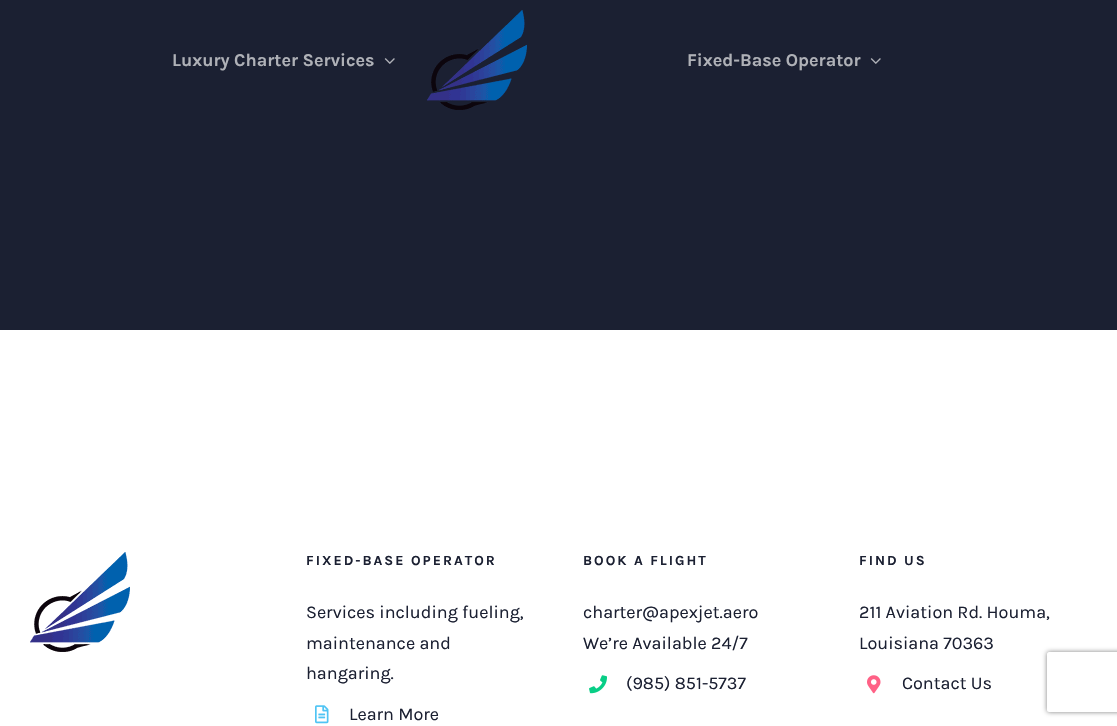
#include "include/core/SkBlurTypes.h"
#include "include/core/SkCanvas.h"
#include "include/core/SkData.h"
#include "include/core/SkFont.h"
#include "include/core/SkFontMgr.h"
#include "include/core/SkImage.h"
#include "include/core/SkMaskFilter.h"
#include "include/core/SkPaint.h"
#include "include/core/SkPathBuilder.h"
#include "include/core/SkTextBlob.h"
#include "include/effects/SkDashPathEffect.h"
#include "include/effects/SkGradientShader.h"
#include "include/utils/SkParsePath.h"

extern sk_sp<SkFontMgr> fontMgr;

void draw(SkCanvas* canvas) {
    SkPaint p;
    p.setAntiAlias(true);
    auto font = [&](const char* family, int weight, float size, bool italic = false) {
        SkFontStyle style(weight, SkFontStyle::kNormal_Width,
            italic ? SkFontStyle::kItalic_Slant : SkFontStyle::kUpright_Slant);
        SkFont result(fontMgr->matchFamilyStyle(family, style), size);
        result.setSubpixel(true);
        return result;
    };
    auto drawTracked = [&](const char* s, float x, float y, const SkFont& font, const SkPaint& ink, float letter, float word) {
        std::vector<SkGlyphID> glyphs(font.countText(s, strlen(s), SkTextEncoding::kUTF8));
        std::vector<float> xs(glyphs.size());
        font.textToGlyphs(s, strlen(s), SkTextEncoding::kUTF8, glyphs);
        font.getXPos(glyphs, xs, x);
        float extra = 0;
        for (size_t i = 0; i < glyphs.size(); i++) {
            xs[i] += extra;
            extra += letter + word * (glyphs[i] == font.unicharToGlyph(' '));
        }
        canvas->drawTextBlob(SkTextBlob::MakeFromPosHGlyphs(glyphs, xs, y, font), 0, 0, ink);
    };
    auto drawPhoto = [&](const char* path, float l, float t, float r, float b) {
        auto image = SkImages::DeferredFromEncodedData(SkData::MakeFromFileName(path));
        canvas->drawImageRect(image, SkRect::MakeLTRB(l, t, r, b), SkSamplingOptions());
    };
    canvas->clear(0xFFFFFFFF);
    p.setColor(0xFF1B2032);
    canvas->drawRect(SkRect::MakeLTRB(0, 0, 1117, 330), p);
    auto font1 = font("Karla", 700, 18);
    p.setColor(0xFFAFB1B7);
    canvas->drawString("Luxury Charter Services", 172, 66, font1, p);
    drawPhoto("media/1.png", 384, 58, 395, 64);
    drawPhoto("media/2.png", 427, 10, 527, 110);
    canvas->drawString("Fixed-Base Operator", 687, 66, font1, p);
    drawPhoto("media/1.png", 870, 58, 881, 64);
    drawPhoto("media/3.png", 30, 552, 130, 652);
    auto font2 = font("Karla", 700, 14);
    p.setColor(0xFF1B2032);
    drawTracked("FIXED-BASE OPERATOR", 306, 565, font2, p, 2, 0);
    auto font3 = font("Karla", 400, 18);
    {
        const struct { const char* s; float x, y; } items[] = {
            {"Services including fueling,", 306, 618},
            {"maintenance and", 306, 649},
            {"hangaring.", 306, 679},
        };
        for (auto [s, x, y] : items) {
            canvas->drawString(s, x, y, font3, p);
        }
    }
    drawPhoto("media/4.png", 315, 705, 329, 724);
    canvas->drawString("Learn More", 349, 720, font3, p);
    drawTracked("BOOK A FLIGHT", 583, 565, font2, p, 2, 0);
    canvas->drawString("charter@apexjet.aero", 583, 618, font3, p);
    canvas->drawString("We’re Available 24/7", 583, 649, font3, p);
    drawPhoto("media/5.png", 589, 675, 607, 694);
    canvas->drawString("(985) 851-5737", 626, 689, font3, p);
    drawTracked("FIND US", 859, 565, font2, p, 2, 0);
    canvas->drawString("211 Aviation Rd. Houma,", 859, 618, font3, p);
    canvas->drawString("Louisiana 70363", 859, 649, font3, p);
    drawPhoto("media/6.png", 867, 675, 881, 694);
    canvas->drawString("Contact Us", 902, 689, font3, p);
    canvas->save();
    canvas->clipPath(SkPathBuilder(SkPathFillType::kEvenOdd).moveTo(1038, 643).lineTo(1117, 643).lineTo(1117, 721).lineTo(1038, 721).close().moveTo(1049, 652).lineTo(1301, 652).cubicTo(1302, 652, 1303, 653, 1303, 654).lineTo(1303, 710).cubicTo(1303, 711, 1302, 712, 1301, 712).lineTo(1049, 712).cubicTo(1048, 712, 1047, 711, 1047, 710).lineTo(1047, 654).cubicTo(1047, 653, 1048, 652, 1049, 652).close().detach(), true);
    p.setColor(0xFF808080);
    p.setMaskFilter(SkMaskFilter::MakeBlur(kNormal_SkBlurStyle, 2.5f));
    canvas->drawRoundRect(SkRect::MakeLTRB(1047, 652, 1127, 712), 2, 2, p);
    p.setMaskFilter(nullptr);
    canvas->restore();
}
